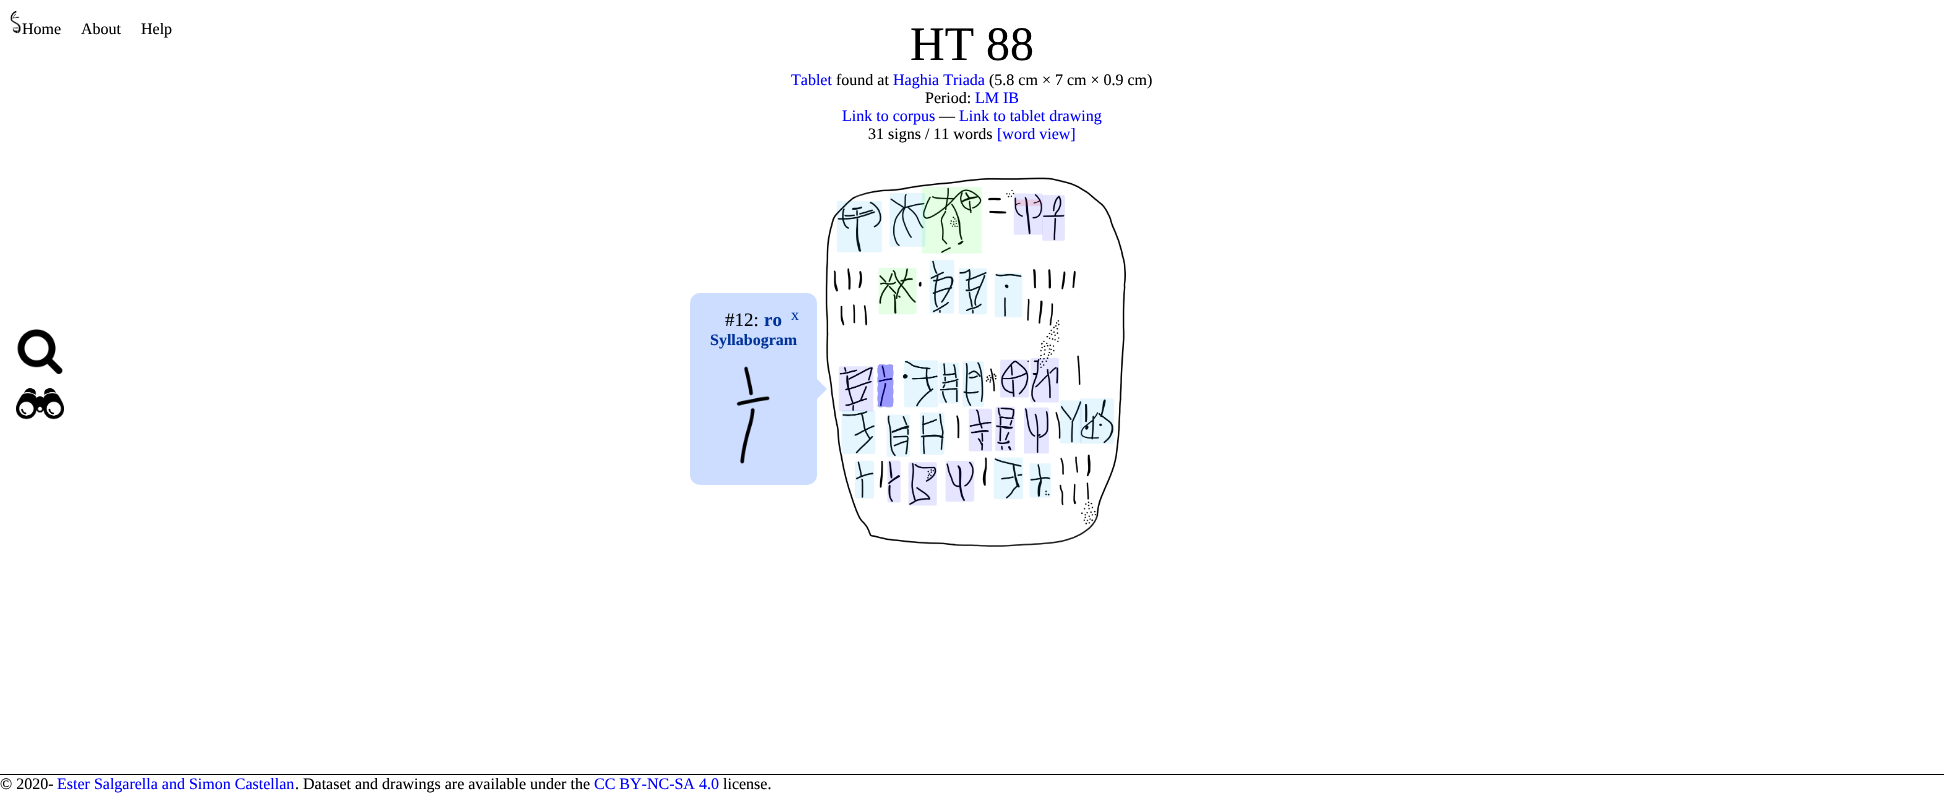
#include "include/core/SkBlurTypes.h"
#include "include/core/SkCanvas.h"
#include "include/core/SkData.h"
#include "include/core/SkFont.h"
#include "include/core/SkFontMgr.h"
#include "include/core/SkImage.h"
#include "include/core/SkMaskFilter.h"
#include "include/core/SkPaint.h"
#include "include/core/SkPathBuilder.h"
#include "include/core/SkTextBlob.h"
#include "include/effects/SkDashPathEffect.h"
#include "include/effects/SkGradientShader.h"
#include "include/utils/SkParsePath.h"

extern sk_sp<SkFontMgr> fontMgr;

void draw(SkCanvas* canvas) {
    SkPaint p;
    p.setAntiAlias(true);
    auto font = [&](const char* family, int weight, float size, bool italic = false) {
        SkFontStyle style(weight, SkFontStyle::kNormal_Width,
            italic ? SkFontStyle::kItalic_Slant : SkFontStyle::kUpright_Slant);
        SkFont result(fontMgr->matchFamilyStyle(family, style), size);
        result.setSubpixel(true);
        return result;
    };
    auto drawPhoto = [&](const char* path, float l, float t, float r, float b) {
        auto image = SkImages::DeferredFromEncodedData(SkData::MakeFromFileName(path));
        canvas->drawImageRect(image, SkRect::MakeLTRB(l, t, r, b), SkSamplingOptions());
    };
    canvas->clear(0xFFFFFFFF);
    drawPhoto("media/1.png", 10, 11, 21, 34);
    auto font1 = font("Liberation Serif", 400, 16);
    p.setColor(0xFF000000);
    {
        const struct { const char* s; float x, y; } items[] = {
            {"Home", 22, 34},
            {"About", 81, 34},
            {"Help", 141, 34},
        };
        for (auto [s, x, y] : items) {
            canvas->drawString(s, x, y, font1, p);
        }
    }
    auto font2 = font("Liberation Serif", 400, 48);
    canvas->drawString("HT 88", 910, 60, font2, p);
    p.setColor(0xFF0000FF);
    canvas->drawString("Tablet", 791, 85, font1, p);
    p.setColor(0xFF000000);
    canvas->drawString("found at", 836, 85, font1, p);
    p.setColor(0xFF0000FF);
    canvas->drawString("Haghia Triada", 893, 85, font1, p);
    p.setColor(0xFF000000);
    canvas->drawString("(5.8 cm × 7 cm × 0.9 cm)", 989, 85, font1, p);
    canvas->drawString("Period:", 925, 103, font1, p);
    p.setColor(0xFF0000FF);
    canvas->drawString("LM IB", 975, 103, font1, p);
    canvas->drawString("Link to corpus", 842, 121, font1, p);
    p.setColor(0xFF000000);
    canvas->drawString("—", 939, 121, font1, p);
    p.setColor(0xFF0000FF);
    canvas->drawString("Link to tablet drawing", 959, 121, font1, p);
    p.setColor(0xFF000000);
    canvas->drawString("31 signs / 11 words", 868, 139, font1, p);
    p.setColor(0xFF0000FF);
    canvas->drawString("[word view]", 997, 139, font1, p);
    p.setColor(0xFFCCDDFF);
    canvas->drawRoundRect(SkRect::MakeLTRB(690, 293, 817, 485), 10, 10, p);
    auto font3 = font("Liberation Serif", 400, 19);
    p.setColor(0xFF000000);
    canvas->drawString("#12:", 725, 326, font3, p);
    auto font4 = font("Liberation Serif", 700, 19);
    p.setColor(0xFF003399);
    canvas->drawString("ro", 764, 326, font4, p);
    canvas->drawString("x", 791, 320, font1, p);
    auto font5 = font("Liberation Serif", 700, 16);
    canvas->drawString("Syllabogram", 710, 345, font5, p);
    drawPhoto("media/2.png", 736, 366, 770, 464);
    drawPhoto("media/3.png", 825, 177, 1126, 547);
    p.setColor(0xFFCCDDFF);
    canvas->drawPath(SkPathBuilder().moveTo(817, 399).lineTo(817, 379).lineTo(827, 389).close().detach(), p);
    drawPhoto("media/4.png", 17, 329, 63, 374);
    drawPhoto("media/5.png", 16, 388, 64, 420);
    p.setColor(0xFF000000);
    canvas->drawRect(SkRect::MakeLTRB(0, 774, 1944, 775), p);
    canvas->drawString("© 2020-", 0, 789, font1, p);
    p.setColor(0xFF0000FF);
    canvas->drawString("Ester Salgarella and Simon Castellan", 57, 789, font1, p);
    p.setColor(0xFF000000);
    canvas->drawString(". Dataset and drawings are available under the", 295, 789, font1, p);
    p.setColor(0xFF0000FF);
    canvas->drawString("CC BY-NC-SA 4.0", 594, 789, font1, p);
    p.setColor(0xFF000000);
    canvas->drawString("license.", 723, 789, font1, p);
}
